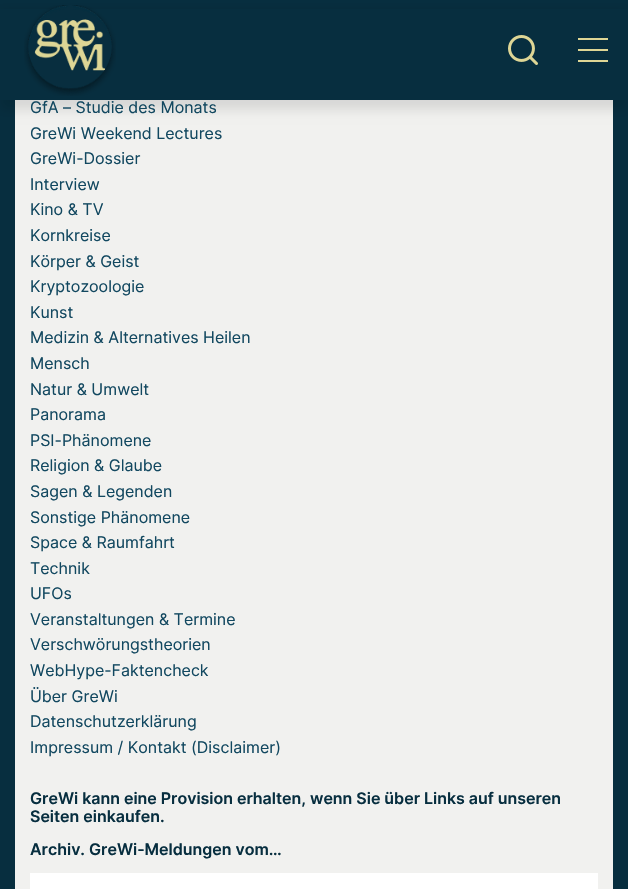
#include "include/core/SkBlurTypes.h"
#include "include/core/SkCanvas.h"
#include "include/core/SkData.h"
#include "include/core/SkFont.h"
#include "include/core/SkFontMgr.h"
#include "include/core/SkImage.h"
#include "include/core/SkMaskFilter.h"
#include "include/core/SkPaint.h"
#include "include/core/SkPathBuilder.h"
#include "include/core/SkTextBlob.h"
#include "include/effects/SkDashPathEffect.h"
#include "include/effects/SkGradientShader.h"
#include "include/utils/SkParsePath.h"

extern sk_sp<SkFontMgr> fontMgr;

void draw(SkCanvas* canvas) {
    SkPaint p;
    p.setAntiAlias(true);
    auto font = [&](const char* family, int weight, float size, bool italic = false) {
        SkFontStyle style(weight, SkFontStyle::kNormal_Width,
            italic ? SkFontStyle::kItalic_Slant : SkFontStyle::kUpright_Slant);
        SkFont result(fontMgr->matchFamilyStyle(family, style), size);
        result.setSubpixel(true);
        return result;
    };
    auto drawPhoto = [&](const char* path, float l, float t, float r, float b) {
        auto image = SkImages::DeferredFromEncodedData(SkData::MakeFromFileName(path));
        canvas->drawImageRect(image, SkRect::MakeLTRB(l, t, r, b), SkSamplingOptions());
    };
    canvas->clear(0xFF072E3F);
    p.setColor(0xFFF1F1EF);
    canvas->drawRect(SkRect::MakeLTRB(15, 100, 613, 889), p);
    p.setColor(0x1A000000);
    p.setMaskFilter(SkMaskFilter::MakeBlur(kNormal_SkBlurStyle, 5));
    canvas->drawRect(SkRect::MakeLTRB(0, 10, 628, 110), p);
    p.setMaskFilter(nullptr);
    p.setColor(0xFF072E3F);
    canvas->drawRect(SkRect::MakeLTRB(0, 9, 628, 100), p);
    drawPhoto("media/1.png", 24, 5, 116, 96);
    drawPhoto("media/2.png", 508, 35, 538, 65);
    {
        const struct { float l, t, r, b; SkColor color; } items[] = {
            {578, 49, 608, 51, 0xFFDED695},
            {578, 38, 608, 40, 0xFFDED695},
            {578, 60, 608, 62, 0xFFDED695},
        };
        for (auto [l, t, r, b, color] : items) {
            p.setColor(color);
            canvas->drawRect(SkRect::MakeLTRB(l, t, r, b), p);
        }
    }
    auto font1 = font("Inter", 400, 16);
    p.setColor(0xFF124860);
    {
        const struct { const char* s; float x, y; } items[] = {
            {"GfA – Studie des Monats", 30, 113},
            {"GreWi Weekend Lectures", 30, 139},
            {"GreWi-Dossier", 30, 164},
            {"Interview", 30, 190},
            {"Kino & TV", 30, 215},
            {"Kornkreise", 30, 241},
            {"Körper & Geist", 30, 267},
            {"Kryptozoologie", 30, 292},
            {"Kunst", 30, 318},
            {"Medizin & Alternatives Heilen", 30, 343},
            {"Mensch", 30, 369},
            {"Natur & Umwelt", 30, 395},
            {"Panorama", 30, 420},
            {"PSI-Phänomene", 30, 446},
            {"Religion & Glaube", 30, 471},
            {"Sagen & Legenden", 30, 497},
            {"Sonstige Phänomene", 30, 523},
            {"Space & Raumfahrt", 30, 548},
            {"Technik", 30, 574},
            {"UFOs", 30, 599},
            {"Veranstaltungen & Termine", 30, 625},
            {"Verschwörungstheorien", 30, 650},
            {"WebHype-Faktencheck", 30, 676},
            {"Über GreWi", 30, 702},
            {"Datenschutzerklärung", 30, 727},
            {"Impressum / Kontakt (Disclaimer)", 30, 753},
        };
        for (auto [s, x, y] : items) {
            canvas->drawString(s, x, y, font1, p);
        }
    }
    auto font2 = font("Inter", 600, 16);
    p.setColor(0xFF072E3F);
    {
        const struct { const char* s; float x, y; } items[] = {
            {"GreWi kann eine Provision erhalten, wenn Sie über Links auf unseren", 30, 804},
            {"Seiten einkaufen.", 30, 822},
            {"Archiv. GreWi-Meldungen vom…", 30, 855},
        };
        for (auto [s, x, y] : items) {
            canvas->drawString(s, x, y, font2, p);
        }
    }
    p.setColor(0xFFFFFFFF);
    canvas->drawRect(SkRect::MakeLTRB(30, 873, 598, 889), p);
}
